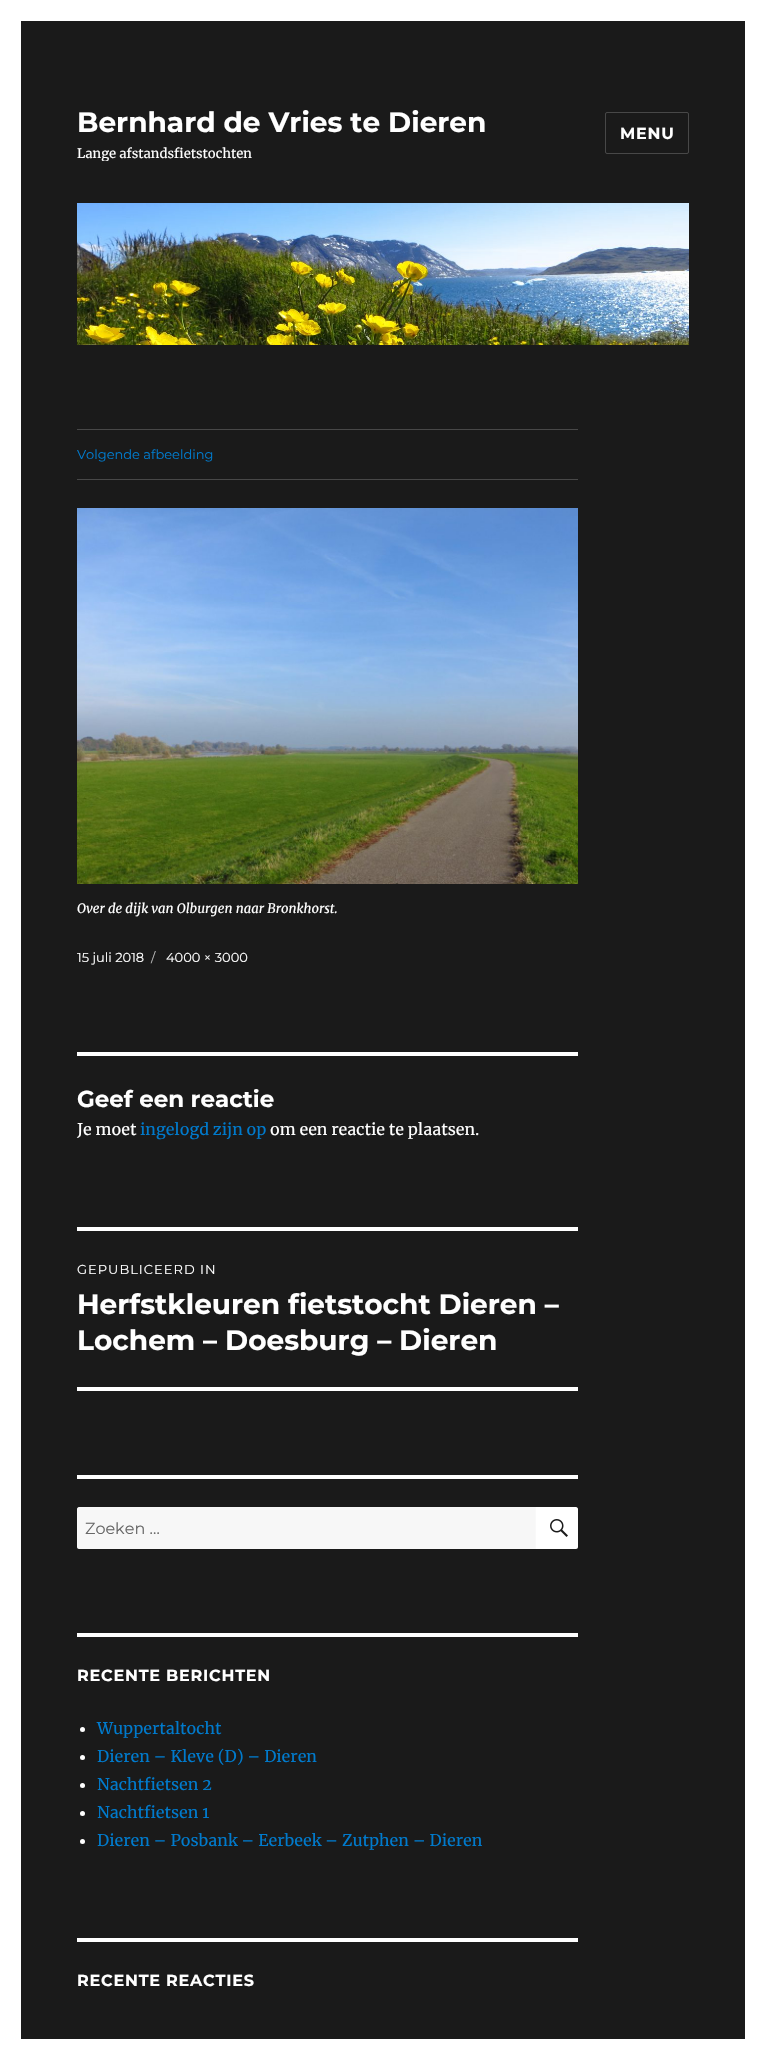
#include "include/core/SkBlurTypes.h"
#include "include/core/SkCanvas.h"
#include "include/core/SkData.h"
#include "include/core/SkFont.h"
#include "include/core/SkFontMgr.h"
#include "include/core/SkImage.h"
#include "include/core/SkMaskFilter.h"
#include "include/core/SkPaint.h"
#include "include/core/SkPathBuilder.h"
#include "include/core/SkTextBlob.h"
#include "include/effects/SkDashPathEffect.h"
#include "include/effects/SkGradientShader.h"
#include "include/utils/SkParsePath.h"

extern sk_sp<SkFontMgr> fontMgr;

void draw(SkCanvas* canvas) {
    SkPaint p;
    p.setAntiAlias(true);
    auto font = [&](const char* family, int weight, float size, bool italic = false) {
        SkFontStyle style(weight, SkFontStyle::kNormal_Width,
            italic ? SkFontStyle::kItalic_Slant : SkFontStyle::kUpright_Slant);
        SkFont result(fontMgr->matchFamilyStyle(family, style), size);
        result.setSubpixel(true);
        return result;
    };
    auto drawTracked = [&](const char* s, float x, float y, const SkFont& font, const SkPaint& ink, float letter, float word) {
        std::vector<SkGlyphID> glyphs(font.countText(s, strlen(s), SkTextEncoding::kUTF8));
        std::vector<float> xs(glyphs.size());
        font.textToGlyphs(s, strlen(s), SkTextEncoding::kUTF8, glyphs);
        font.getXPos(glyphs, xs, x);
        float extra = 0;
        for (size_t i = 0; i < glyphs.size(); i++) {
            xs[i] += extra;
            extra += letter + word * (glyphs[i] == font.unicharToGlyph(' '));
        }
        canvas->drawTextBlob(SkTextBlob::MakeFromPosHGlyphs(glyphs, xs, y, font), 0, 0, ink);
    };
    auto drawPhoto = [&](const char* path, float l, float t, float r, float b) {
        auto image = SkImages::DeferredFromEncodedData(SkData::MakeFromFileName(path));
        canvas->drawImageRect(image, SkRect::MakeLTRB(l, t, r, b), SkSamplingOptions());
    };
    canvas->clear(0xFFFFFFFF);
    p.setColor(0xFF1A1A1A);
    canvas->drawRect(SkRect::MakeLTRB(21, 21, 745, 2039), p);
    auto font1 = font("Montserrat", 100, 28);
    p.setColor(0xFFFFFFFF);
    canvas->drawString("Bernhard de Vries te Dieren", 77, 132, font1, p);
    canvas->save();
    canvas->clipRect(SkRect::MakeLTRB(77, 105, 486, 161));
    auto font2 = font("Merriweather", 400, 13);
    canvas->drawString("Lange afstandsfietstochten", 77, 158, font2, p);
    canvas->restore();
    p.setStyle(SkPaint::kStroke_Style);
    p.setStrokeWidth(1);
    p.setColor(0xFF484848);
    canvas->drawRoundRect(SkRect::MakeLTRB(605.5f, 112.5f, 688.5f, 153.5f), 1.5f, 1.5f, p);
    auto font3 = font("Montserrat", 100, 16);
    p.setStyle(SkPaint::kFill_Style);
    p.setColor(0xFFFFFFFF);
    drawTracked("MENU", 620, 139, font3, p, 0.75f, 0);
    drawPhoto("media/1.png", 77, 203, 689, 345);
    p.setColor(0xFF484848);
    canvas->drawRect(SkRect::MakeLTRB(77, 429, 578, 430), p);
    canvas->drawRect(SkRect::MakeLTRB(77, 479, 578, 480), p);
    auto font4 = font("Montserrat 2", 100, 13);
    p.setColor(0xFF007ACC);
    canvas->drawString("Volgende afbeelding", 77, 459, font4, p);
    drawPhoto("media/2.png", 77, 508, 578, 884);
    auto font5 = font("Merriweather", 400, 13, true);
    p.setColor(0xFFFFFFFF);
    canvas->drawString("Over de dijk van Olburgen naar Bronkhorst.", 77, 913, font5, p);
    canvas->drawString("15 juli 2018", 77, 962, font4, p);
    p.setColor(0xFFBABABA);
    canvas->drawString("/", 151, 962, font4, p);
    p.setColor(0xFFFFFFFF);
    canvas->drawString("4000 × 3000", 166, 962, font4, p);
    canvas->drawRect(SkRect::MakeLTRB(77, 1052, 578, 1056), p);
    auto font6 = font("Montserrat", 100, 23);
    canvas->drawString("Geef een reactie", 77, 1107, font6, p);
    auto font7 = font("Merriweather", 400, 16);
    canvas->drawString("Je moet", 77, 1135, font7, p);
    p.setColor(0xFF007ACC);
    canvas->drawString("ingelogd zijn op", 140, 1135, font7, p);
    p.setColor(0xFFFFFFFF);
    canvas->drawString("om een reactie te plaatsen.", 270, 1135, font7, p);
    canvas->drawRect(SkRect::MakeLTRB(77, 1227, 578, 1231), p);
    canvas->drawRect(SkRect::MakeLTRB(77, 1387, 578, 1391), p);
    drawTracked("GEPUBLICEERD IN", 77, 1274, font4, p, 1, 0);
    canvas->drawString("Herfstkleuren fietstocht Dieren –", 77, 1314, font1, p);
    canvas->drawString("Lochem – Doesburg – Dieren", 77, 1350, font1, p);
    canvas->drawRect(SkRect::MakeLTRB(77, 1475, 578, 1479), p);
    p.setColor(0xFFF7F7F7);
    canvas->drawPath(SkPathBuilder().moveTo(79, 1507).lineTo(536, 1507).lineTo(536, 1549).lineTo(79, 1549).cubicTo(78, 1549, 77, 1548, 77, 1547).lineTo(77, 1509).cubicTo(77, 1508, 78, 1507, 79, 1507).close().detach(), p);
    p.setStyle(SkPaint::kStroke_Style);
    p.setColor(0x33FFFFFF);
    canvas->drawPath(SkPathBuilder().moveTo(79, 1507.5f).lineTo(535.5f, 1507.5f).lineTo(535.5f, 1548.5f).lineTo(79, 1548.5f).cubicTo(78, 1548.5f, 77.5f, 1548, 77.5f, 1547).lineTo(77.5f, 1509).cubicTo(77.5f, 1508, 78, 1507.5f, 79, 1507.5f).close().detach(), p);
    auto font8 = font("Montserrat 2", 100, 16);
    p.setStyle(SkPaint::kFill_Style);
    p.setColor(0xFF686868);
    canvas->drawString("Zoeken …", 85, 1534, font8, p);
    p.setColor(0xFFFFFFFF);
    canvas->drawPath(SkPathBuilder().moveTo(536, 1507).lineTo(576, 1507).cubicTo(577, 1507, 578, 1508, 578, 1509).lineTo(578, 1547).cubicTo(578, 1548, 577, 1549, 576, 1549).lineTo(536, 1549).close().detach(), p);
    drawPhoto("media/3.png", 550, 1519, 568, 1537);
    canvas->drawRect(SkRect::MakeLTRB(77, 1633, 578, 1637), p);
    drawTracked("RECENTE BERICHTEN", 77, 1681, font3, p, 0.75f, 0);
    canvas->drawCircle(82.5f, 1729.5f, 2.5f, p);
    p.setColor(0xFF007ACC);
    canvas->drawString("Wuppertaltocht", 97, 1734, font7, p);
    p.setColor(0xFFFFFFFF);
    canvas->drawCircle(82.5f, 1757.5f, 2.5f, p);
    p.setColor(0xFF007ACC);
    canvas->drawString("Dieren – Kleve (D) – Dieren", 97, 1762, font7, p);
    p.setColor(0xFFFFFFFF);
    canvas->drawCircle(82.5f, 1785.5f, 2.5f, p);
    p.setColor(0xFF007ACC);
    canvas->drawString("Nachtfietsen 2", 97, 1790, font7, p);
    p.setColor(0xFFFFFFFF);
    canvas->drawCircle(82.5f, 1813.5f, 2.5f, p);
    p.setColor(0xFF007ACC);
    canvas->drawString("Nachtfietsen 1", 97, 1818, font7, p);
    p.setColor(0xFFFFFFFF);
    canvas->drawCircle(82.5f, 1841.5f, 2.5f, p);
    p.setColor(0xFF007ACC);
    canvas->drawString("Dieren – Posbank – Eerbeek – Zutphen – Dieren", 97, 1846, font7, p);
    p.setColor(0xFFFFFFFF);
    canvas->drawRect(SkRect::MakeLTRB(77, 1938, 578, 1942), p);
    drawTracked("RECENTE REACTIES", 77, 1986, font3, p, 0.75f, 0);
}
